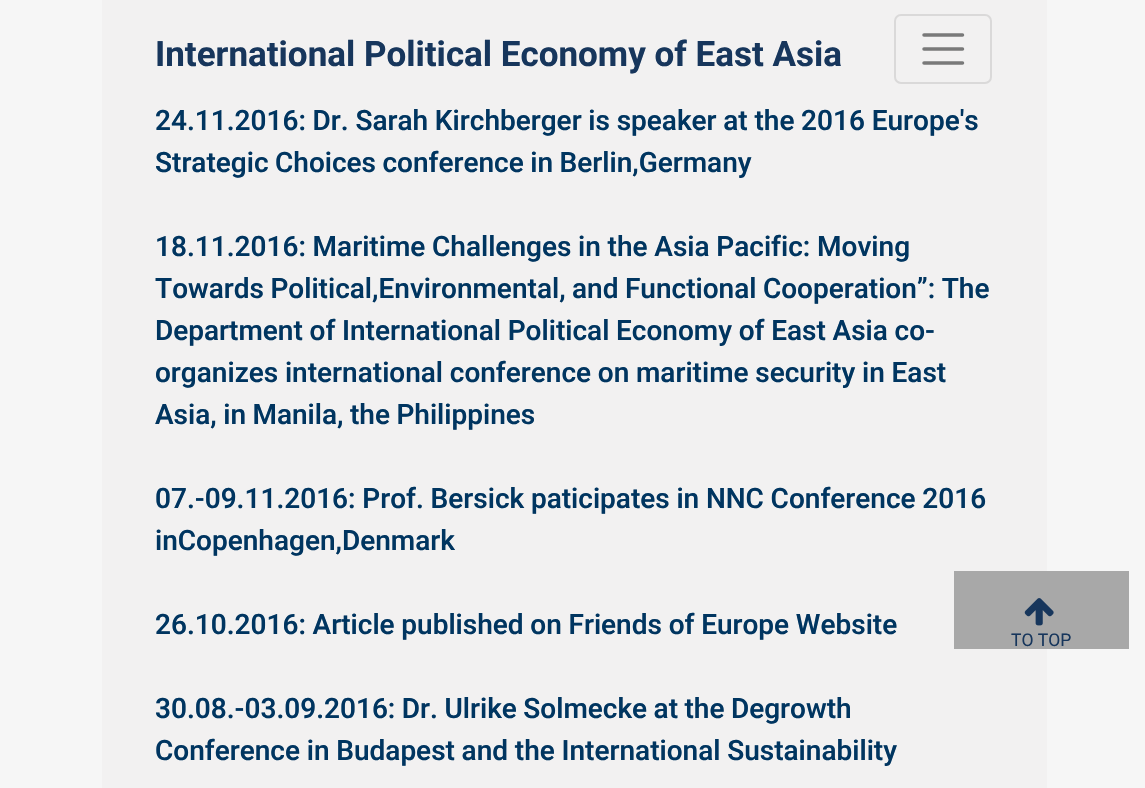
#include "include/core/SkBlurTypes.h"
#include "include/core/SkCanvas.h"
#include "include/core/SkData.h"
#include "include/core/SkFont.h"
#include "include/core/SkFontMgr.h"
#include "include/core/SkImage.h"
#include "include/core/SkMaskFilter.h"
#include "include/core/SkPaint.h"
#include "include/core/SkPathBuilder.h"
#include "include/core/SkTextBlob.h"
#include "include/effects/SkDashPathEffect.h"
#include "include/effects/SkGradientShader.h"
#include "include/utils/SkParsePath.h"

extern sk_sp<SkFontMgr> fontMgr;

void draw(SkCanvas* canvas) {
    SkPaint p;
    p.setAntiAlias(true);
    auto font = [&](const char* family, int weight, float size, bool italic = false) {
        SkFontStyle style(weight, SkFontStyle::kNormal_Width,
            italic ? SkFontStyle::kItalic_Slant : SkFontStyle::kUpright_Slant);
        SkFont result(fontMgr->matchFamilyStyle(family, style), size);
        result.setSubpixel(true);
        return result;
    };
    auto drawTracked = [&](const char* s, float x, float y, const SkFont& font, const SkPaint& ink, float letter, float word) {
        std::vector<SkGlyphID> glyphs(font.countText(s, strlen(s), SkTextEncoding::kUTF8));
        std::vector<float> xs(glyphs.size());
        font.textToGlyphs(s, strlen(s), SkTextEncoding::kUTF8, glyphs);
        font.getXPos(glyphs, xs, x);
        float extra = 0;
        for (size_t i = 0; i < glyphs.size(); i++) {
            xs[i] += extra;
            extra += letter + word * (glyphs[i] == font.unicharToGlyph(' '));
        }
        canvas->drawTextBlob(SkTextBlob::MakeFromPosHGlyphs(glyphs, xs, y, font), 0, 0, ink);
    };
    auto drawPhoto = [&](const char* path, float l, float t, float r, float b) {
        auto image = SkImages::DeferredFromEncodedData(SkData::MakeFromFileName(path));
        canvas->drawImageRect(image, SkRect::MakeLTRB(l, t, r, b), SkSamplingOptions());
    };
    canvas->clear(0xFFF6F6F6);
    p.setColor(0xFFF2F1F1);
    canvas->drawRect(SkRect::MakeLTRB(102, 0, 1047, 788), p);
    auto font1 = font("Roboto", 700, 35);
    p.setColor(0xFF17365C);
    canvas->drawString("International Political Economy of East Asia", 155, 66, font1, p);
    p.setStyle(SkPaint::kStroke_Style);
    p.setStrokeWidth(2);
    p.setColor(0xFFDAD9D9);
    canvas->drawRoundRect(SkRect::MakeLTRB(895, 15, 991, 83), 6, 6, p);
    p.setStrokeWidth(3.5f);
    p.setStrokeCap(SkPaint::kRound_Cap);
    p.setColor(0xFF797979);
    canvas->drawPath(SkPathBuilder().moveTo(924, 35).lineTo(962.5f, 35).moveTo(924, 49).lineTo(962.5f, 49).moveTo(924, 63).lineTo(962.5f, 63).detach(), p);
    auto font2 = font("Roboto", 500, 28);
    p.setStyle(SkPaint::kFill_Style);
    p.setColor(0xFF003560);
    drawTracked("24.11.2016: Dr. Sarah Kirchberger is speaker at the 2016 Europe's", 155, 130, font2, p, 0, -0.25f);
    drawTracked("Strategic Choices conference in Berlin,Germany", 155, 172, font2, p, 0, -0.5f);
    drawTracked("18.11.2016: Maritime Challenges in the Asia Pacific: Moving", 155, 256, font2, p, 0, -0.25f);
    drawTracked("Towards Political,Environmental, and Functional Cooperation”: The", 155, 298, font2, p, 0, -0.5f);
    drawTracked("Department of International Political Economy of East Asia co-", 155, 340, font2, p, 0, -0.25f);
    drawTracked("organizes international conference on maritime security in East", 155, 382, font2, p, 0, -0.25f);
    drawTracked("Asia, in Manila, the Philippines", 155, 424, font2, p, 0, -0.5f);
    drawTracked("07.-09.11.2016: Prof. Bersick paticipates in NNC Conference 2016", 155, 508, font2, p, 0, -0.25f);
    canvas->drawString("inCopenhagen,Denmark", 155, 550, font2, p);
    drawTracked("26.10.2016: Article published on Friends of Europe Website", 155, 634, font2, p, 0, -0.25f);
    drawTracked("30.08.-03.09.2016: Dr. Ulrike Solmecke at the Degrowth", 155, 718, font2, p, 0, -0.5f);
    drawTracked("Conference in Budapest and the International Sustainability", 155, 760, font2, p, 0, -0.25f);
    p.setColor(0xFFA8A8A8);
    canvas->drawRect(SkRect::MakeLTRB(954, 571, 1129, 649), p);
    drawPhoto("media/1.png", 1024, 598, 1054, 626);
    auto font3 = font("Roboto", 400, 17.5f);
    p.setColor(0xFF17365C);
    canvas->drawString("TO TOP", 1011, 646, font3, p);
}
